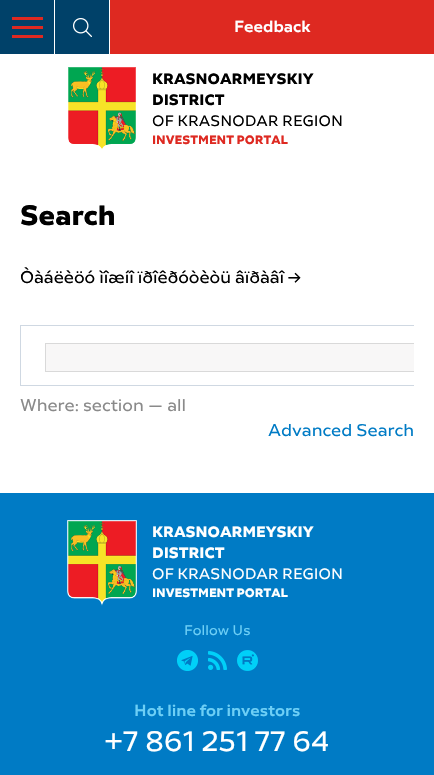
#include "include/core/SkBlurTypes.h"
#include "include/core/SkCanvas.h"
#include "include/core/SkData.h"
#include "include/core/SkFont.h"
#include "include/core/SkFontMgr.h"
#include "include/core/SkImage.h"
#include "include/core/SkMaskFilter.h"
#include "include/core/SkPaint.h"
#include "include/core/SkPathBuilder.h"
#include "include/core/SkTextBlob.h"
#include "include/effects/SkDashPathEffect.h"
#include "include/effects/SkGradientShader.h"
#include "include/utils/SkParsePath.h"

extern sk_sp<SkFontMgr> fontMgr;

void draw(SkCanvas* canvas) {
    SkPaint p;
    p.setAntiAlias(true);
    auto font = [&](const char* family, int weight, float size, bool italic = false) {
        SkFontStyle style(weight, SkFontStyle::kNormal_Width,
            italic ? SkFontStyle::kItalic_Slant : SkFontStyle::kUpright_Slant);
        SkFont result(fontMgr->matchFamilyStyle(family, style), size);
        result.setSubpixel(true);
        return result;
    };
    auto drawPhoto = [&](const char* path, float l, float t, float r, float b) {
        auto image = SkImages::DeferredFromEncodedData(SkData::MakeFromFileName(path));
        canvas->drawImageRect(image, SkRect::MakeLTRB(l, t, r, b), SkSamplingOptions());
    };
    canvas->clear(0xFFFFFFFF);
    {
        const struct { float l, t, r, b; SkColor color; } items[] = {
            {0, 0, 54, 54, 0xFF004169},
            {12, 26, 43, 29, 0xFFDE2921},
            {12, 17, 43, 20, 0xFFDE2921},
            {12, 35, 43, 38, 0xFFDE2921},
            {55, 0, 109, 54, 0xFF004169},
        };
        for (auto [l, t, r, b, color] : items) {
            p.setColor(color);
            canvas->drawRect(SkRect::MakeLTRB(l, t, r, b), p);
        }
    }
    drawPhoto("media/1.png", 73, 18, 92, 37);
    p.setColor(0xFFDE2921);
    canvas->drawRect(SkRect::MakeLTRB(110, 0, 434, 54), p);
    auto font1 = font("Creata", 500, 16);
    p.setColor(0xFFFFFFFF);
    canvas->drawString("Feedback", 234, 32, font1, p);
    drawPhoto("media/2.png", 68, 67, 136, 150);
    auto font2 = font("Creata", 700, 15);
    p.setColor(0xFF000000);
    canvas->drawString("KRASNOARMEYSKIY", 152, 84, font2, p);
    canvas->drawString("DISTRICT", 152, 105, font2, p);
    auto font3 = font("Creata", 400, 15);
    canvas->drawString("OF KRASNODAR REGION", 152, 126, font3, p);
    auto font4 = font("Creata", 700, 12);
    p.setColor(0xFFDE2921);
    canvas->drawString("INVESTMENT PORTAL", 152, 144, font4, p);
    auto font5 = font("Creata", 700, 28);
    p.setColor(0xFF000000);
    canvas->drawString("Search", 20, 225, font5, p);
    auto font6 = font("Creata", 400, 17);
    canvas->drawString("Òàáëèöó ìîæíî ïðîêðóòèòü âïðàâî →", 20, 283, font6, p);
    {
        const struct { float l, t, r, b; SkColor color; } items[] = {
            {20, 325, 414, 326, 0xFFCFD8E2},
            {20, 385, 414, 386, 0xFFCFD8E2},
            {20, 325, 21, 386, 0xFFCFD8E2},
            {46, 344, 414, 371, 0xFFF8F7F7},
        };
        for (auto [l, t, r, b, color] : items) {
            p.setColor(color);
            canvas->drawRect(SkRect::MakeLTRB(l, t, r, b), p);
        }
    }
    canvas->save();
    canvas->clipRect(SkRect::MakeLTRB(20, 266, 414, 386));
    p.setStyle(SkPaint::kStroke_Style);
    p.setStrokeWidth(1);
    p.setColor(0xFFD9D9D9);
    canvas->drawRect(SkRect::MakeLTRB(45.5f, 343.5f, 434.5f, 371.5f), p);
    canvas->restore();
    p.setStyle(SkPaint::kFill_Style);
    p.setColor(0xFF8A8A8A);
    canvas->drawString("Where: section — all", 20, 411, font6, p);
    p.setColor(0xFF007BC5);
    canvas->drawString("Advanced Search", 268, 436, font6, p);
    canvas->drawRect(SkRect::MakeLTRB(0, 493, 434, 775), p);
    drawPhoto("media/3.png", 67, 520, 137, 606);
    p.setColor(0xFFFFFFFF);
    canvas->drawString("KRASNOARMEYSKIY", 152, 537, font2, p);
    canvas->drawString("DISTRICT", 152, 558, font2, p);
    canvas->drawString("OF KRASNODAR REGION", 152, 579, font3, p);
    canvas->drawString("INVESTMENT PORTAL", 152, 597, font4, p);
    auto font7 = font("Creata", 400, 14);
    p.setColor(0xFF6DCFF6);
    canvas->drawString("Follow Us", 184, 635, font7, p);
    drawPhoto("media/4.png", 177, 650, 198, 671);
    drawPhoto("media/5.png", 208, 651, 227, 670);
    drawPhoto("media/6.png", 237, 650, 258, 671);
    canvas->drawString("Hot line for investors", 134, 716, font1, p);
    auto font8 = font("Creata", 400, 28);
    p.setColor(0xFFFFFFFF);
    canvas->drawString("+7 861 251 77 64", 104, 751, font8, p);
}
